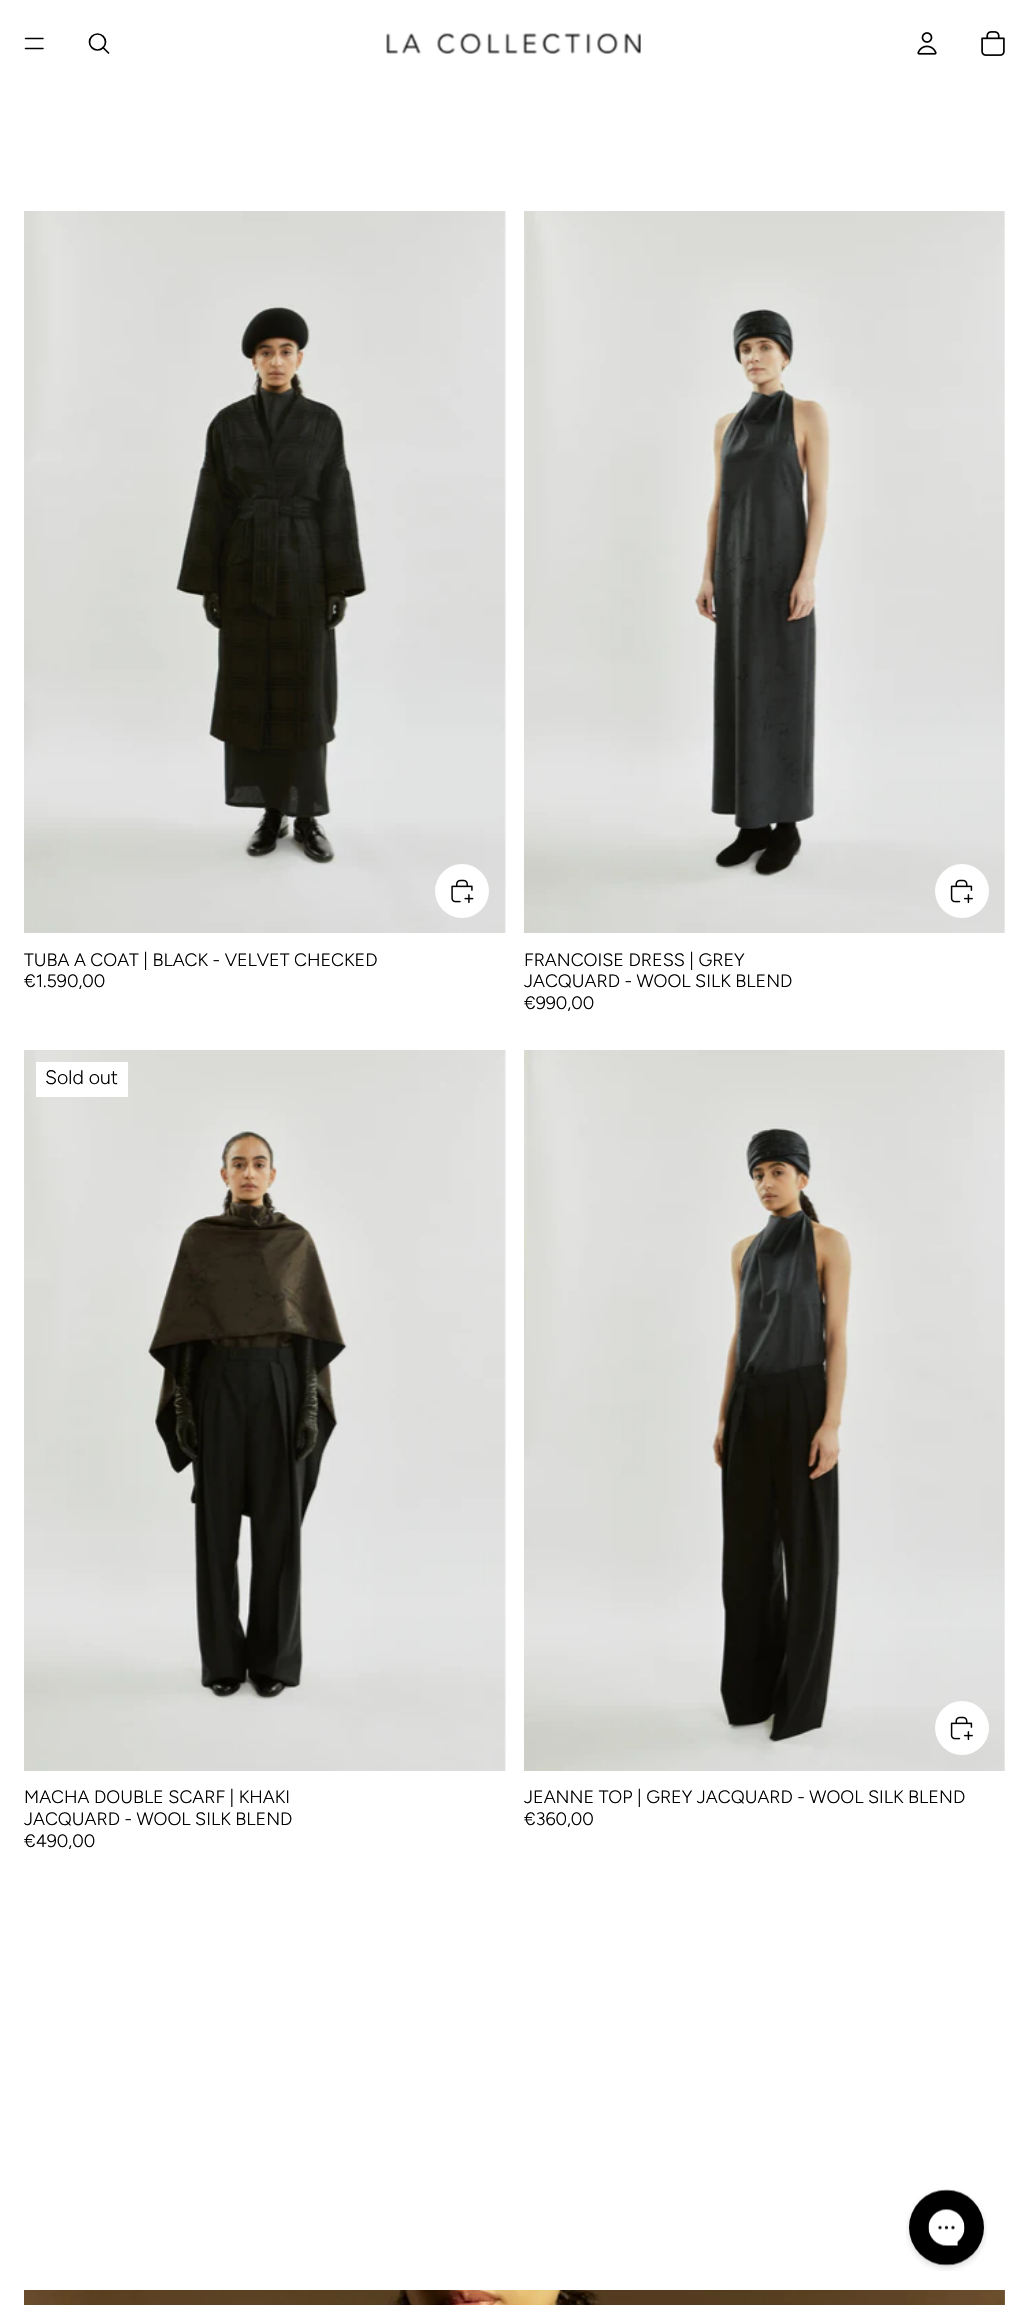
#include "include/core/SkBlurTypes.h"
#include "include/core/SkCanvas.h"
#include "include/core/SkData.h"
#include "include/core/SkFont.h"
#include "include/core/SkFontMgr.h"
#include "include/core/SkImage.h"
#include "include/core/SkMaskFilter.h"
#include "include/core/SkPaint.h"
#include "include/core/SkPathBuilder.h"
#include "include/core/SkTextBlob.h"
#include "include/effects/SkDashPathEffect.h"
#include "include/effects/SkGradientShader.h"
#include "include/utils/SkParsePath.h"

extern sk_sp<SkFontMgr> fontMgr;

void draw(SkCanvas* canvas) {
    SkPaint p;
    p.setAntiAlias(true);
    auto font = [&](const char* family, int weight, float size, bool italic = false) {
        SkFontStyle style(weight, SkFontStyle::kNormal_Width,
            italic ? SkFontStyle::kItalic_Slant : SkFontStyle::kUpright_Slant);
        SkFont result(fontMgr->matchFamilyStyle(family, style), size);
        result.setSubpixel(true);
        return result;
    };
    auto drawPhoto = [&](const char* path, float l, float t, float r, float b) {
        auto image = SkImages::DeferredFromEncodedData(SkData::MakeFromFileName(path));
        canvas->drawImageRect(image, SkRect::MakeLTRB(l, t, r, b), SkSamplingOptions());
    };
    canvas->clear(0xFFFFFFFF);
    p.setStyle(SkPaint::kStroke_Style);
    p.setStrokeWidth(1.5f);
    p.setStrokeCap(SkPaint::kRound_Cap);
    p.setColor(0xFF000000);
    canvas->drawPath(SkPathBuilder().moveTo(25.5f, 38.5f).lineTo(43, 38.5f).moveTo(25.5f, 48.5f).lineTo(43, 48.5f).detach(), p);
    p.setStrokeWidth(1.7f);
    p.setStrokeCap(SkPaint::kButt_Cap);
    canvas->drawCircle(97.5f, 42, 8, p);
    p.setStrokeCap(SkPaint::kRound_Cap);
    p.setStrokeJoin(SkPaint::kRound_Join);
    canvas->drawPath(SkPathBuilder().moveTo(103, 47.5f).lineTo(108.5f, 53).detach(), p);
    drawPhoto("media/1.png", 386, 33, 641, 54);
    drawPhoto("media/2.png", 917, 32, 937, 55);
    drawPhoto("media/3.png", 981, 31, 1005, 56);
    drawPhoto("media/4.png", 24, 211, 506, 933);
    p.setStyle(SkPaint::kFill_Style);
    p.setColor(0xFFFFFFFF);
    canvas->drawCircle(462, 891, 27, p);
    drawPhoto("media/5.png", 451, 879, 474, 904);
    auto font1 = font("Figtree", 300, 18);
    p.setColor(0xFF000000);
    canvas->drawString("TUBA A COAT | BLACK - VELVET CHECKED", 24, 966, font1, p);
    canvas->drawString("€1.590,00", 24, 987, font1, p);
    drawPhoto("media/6.png", 524, 211, 1005, 933);
    p.setColor(0xFFFFFFFF);
    canvas->drawCircle(962, 891, 27, p);
    drawPhoto("media/7.png", 950, 879, 973, 904);
    p.setColor(0xFF000000);
    {
        const struct { const char* s; float x, y; } items[] = {
            {"FRANCOISE DRESS | GREY", 524, 966},
            {"JACQUARD - WOOL SILK BLEND", 524, 987},
            {"€990,00", 524, 1009},
        };
        for (auto [s, x, y] : items) {
            canvas->drawString(s, x, y, font1, p);
        }
    }
    drawPhoto("media/8.png", 24, 1050, 506, 1771);
    p.setColor(0xFFFFFFFF);
    canvas->drawRect(SkRect::MakeLTRB(36, 1062, 128, 1097), p);
    auto font2 = font("Figtree", 300, 19.5f);
    p.setColor(0xFF000000);
    canvas->drawString("Sold out", 45, 1084, font2, p);
    {
        const struct { const char* s; float x, y; } items[] = {
            {"MACHA DOUBLE SCARF | KHAKI", 24, 1803},
            {"JACQUARD - WOOL SILK BLEND", 24, 1825},
            {"€490,00", 24, 1847},
        };
        for (auto [s, x, y] : items) {
            canvas->drawString(s, x, y, font1, p);
        }
    }
    drawPhoto("media/9.png", 524, 1050, 1005, 1771);
    p.setColor(0xFFFFFFFF);
    canvas->drawCircle(962, 1728, 27, p);
    drawPhoto("media/7.png", 950, 1716, 973, 1741);
    p.setColor(0xFF000000);
    canvas->drawString("JEANNE TOP | GREY JACQUARD - WOOL SILK BLEND", 524, 1803, font1, p);
    canvas->drawString("€360,00", 524, 1825, font1, p);
    drawPhoto("media/10.png", 24, 2290, 1005, 2305);
    drawPhoto("media/11.png", 906, 2189, 987, 2271);
}
